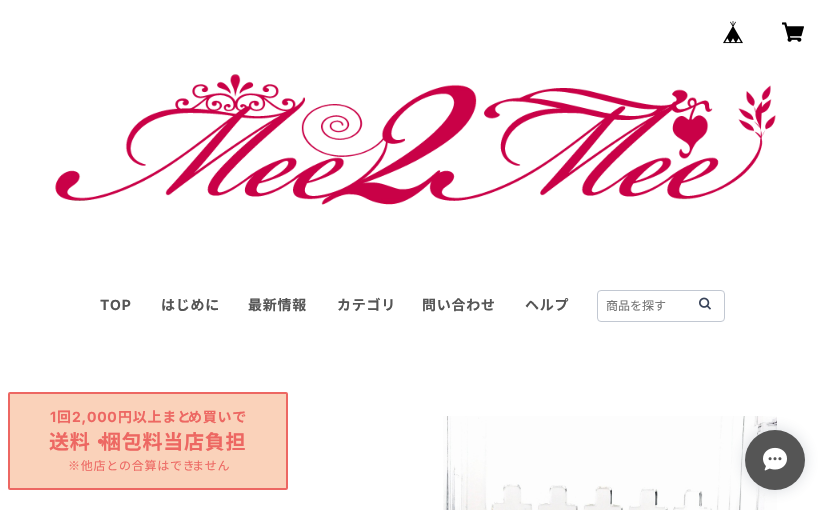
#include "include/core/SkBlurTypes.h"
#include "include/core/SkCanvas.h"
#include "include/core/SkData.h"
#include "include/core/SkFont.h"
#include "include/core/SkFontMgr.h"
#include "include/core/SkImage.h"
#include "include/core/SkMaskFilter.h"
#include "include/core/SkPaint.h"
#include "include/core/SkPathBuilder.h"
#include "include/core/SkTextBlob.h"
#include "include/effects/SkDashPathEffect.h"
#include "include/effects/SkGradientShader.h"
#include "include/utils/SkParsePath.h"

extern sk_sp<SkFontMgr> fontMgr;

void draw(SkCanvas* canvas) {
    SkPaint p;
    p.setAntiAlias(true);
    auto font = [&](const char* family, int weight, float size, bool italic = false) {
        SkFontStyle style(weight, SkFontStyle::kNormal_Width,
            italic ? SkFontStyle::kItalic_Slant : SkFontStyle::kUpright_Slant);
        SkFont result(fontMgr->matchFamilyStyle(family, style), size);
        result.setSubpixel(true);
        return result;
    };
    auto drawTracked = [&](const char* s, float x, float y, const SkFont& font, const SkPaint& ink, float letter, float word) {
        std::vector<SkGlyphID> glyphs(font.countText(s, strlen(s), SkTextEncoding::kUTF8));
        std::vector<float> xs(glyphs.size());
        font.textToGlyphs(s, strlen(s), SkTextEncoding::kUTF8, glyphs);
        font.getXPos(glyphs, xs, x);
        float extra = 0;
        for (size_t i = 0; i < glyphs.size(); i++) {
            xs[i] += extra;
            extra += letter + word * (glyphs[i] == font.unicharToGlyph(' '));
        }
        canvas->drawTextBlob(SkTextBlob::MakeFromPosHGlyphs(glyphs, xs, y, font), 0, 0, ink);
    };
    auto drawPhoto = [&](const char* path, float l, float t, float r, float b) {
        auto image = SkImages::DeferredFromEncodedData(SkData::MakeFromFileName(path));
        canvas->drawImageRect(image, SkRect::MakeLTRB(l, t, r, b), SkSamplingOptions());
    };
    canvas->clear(0xFFFFFFFF);
    drawPhoto("media/1.png", 723, 21, 743, 44);
    drawPhoto("media/2.png", 782, 22, 804, 42);
    drawPhoto("media/3.png", 55, 74, 776, 205);
    auto font1 = font("Inter", 700, 14);
    p.setColor(0xFF555555);
    drawTracked("TOP", 100, 310, font1, p, 0.75f, 0);
    auto font2 = font("Noto Sans JP", 700, 14);
    {
        const struct { const char* s; float x, y; } items[] = {
            {"はじめに", 161, 310},
            {"最新情報", 248, 310},
            {"カテゴリ", 337, 310},
            {"問い合わせ", 422, 310},
            {"ヘルプ", 525, 310},
        };
        for (auto [s, x, y] : items) {
            drawTracked(s, x, y, font2, p, 0.75f, 0);
        }
    }
    p.setStyle(SkPaint::kStroke_Style);
    p.setStrokeWidth(1);
    p.setColor(0xFFC2C8D2);
    canvas->drawRoundRect(SkRect::MakeLTRB(597.5f, 290.5f, 724.5f, 321.5f), 3.5f, 3.5f, p);
    auto font3 = font("Noto Sans JP", 400, 12);
    p.setStyle(SkPaint::kFill_Style);
    p.setColor(0xFF757575);
    canvas->drawString("商品を探す", 606, 310, font3, p);
    drawPhoto("media/4.png", 699, 297, 711, 310);
    p.setColor(0xFFFAD2BA);
    canvas->drawRoundRect(SkRect::MakeLTRB(9, 393, 287, 489), 1, 1, p);
    p.setStyle(SkPaint::kStroke_Style);
    p.setStrokeWidth(2);
    p.setColor(0xFFED6762);
    canvas->drawRoundRect(SkRect::MakeLTRB(9, 393, 287, 489), 1, 1, p);
    p.setStyle(SkPaint::kFill_Style);
    drawTracked("1", 50, 422, font1, p, 0.75f, 0);
    drawTracked("回", 57, 422, font2, p, 0.75f, 0);
    drawTracked("2,000", 72, 422, font1, p, 0.75f, 0);
    drawTracked("円以上まと", 118, 422, font2, p, 0.75f, 0);
    drawTracked("め買いで", 188, 422, font2, p, 0.75f, 0);
    auto font4 = font("Noto Sans JP", 700, 20);
    drawTracked("送料・", 49, 449, font4, p, 0.75f, 0);
    drawTracked("梱包料当店負担", 101, 449, font4, p, 0.75f, 0);
    drawTracked("※他店との合算はでき", 68, 470, font3, p, 0.75f, 0);
    drawTracked("ません", 192, 470, font3, p, 0.75f, 0);
    drawPhoto("media/5.png", 443, 416, 777, 510);
    p.setColor(0x33334258);
    p.setMaskFilter(SkMaskFilter::MakeBlur(kNormal_SkBlurStyle, 7.5f));
    canvas->drawRoundRect(SkRect::MakeLTRB(745, 430, 805, 490), 30, 30, p);
    p.setMaskFilter(nullptr);
    p.setColor(0xFF555555);
    canvas->drawCircle(775, 460, 30, p);
    drawPhoto("media/6.png", 763, 447, 787, 471);
}
